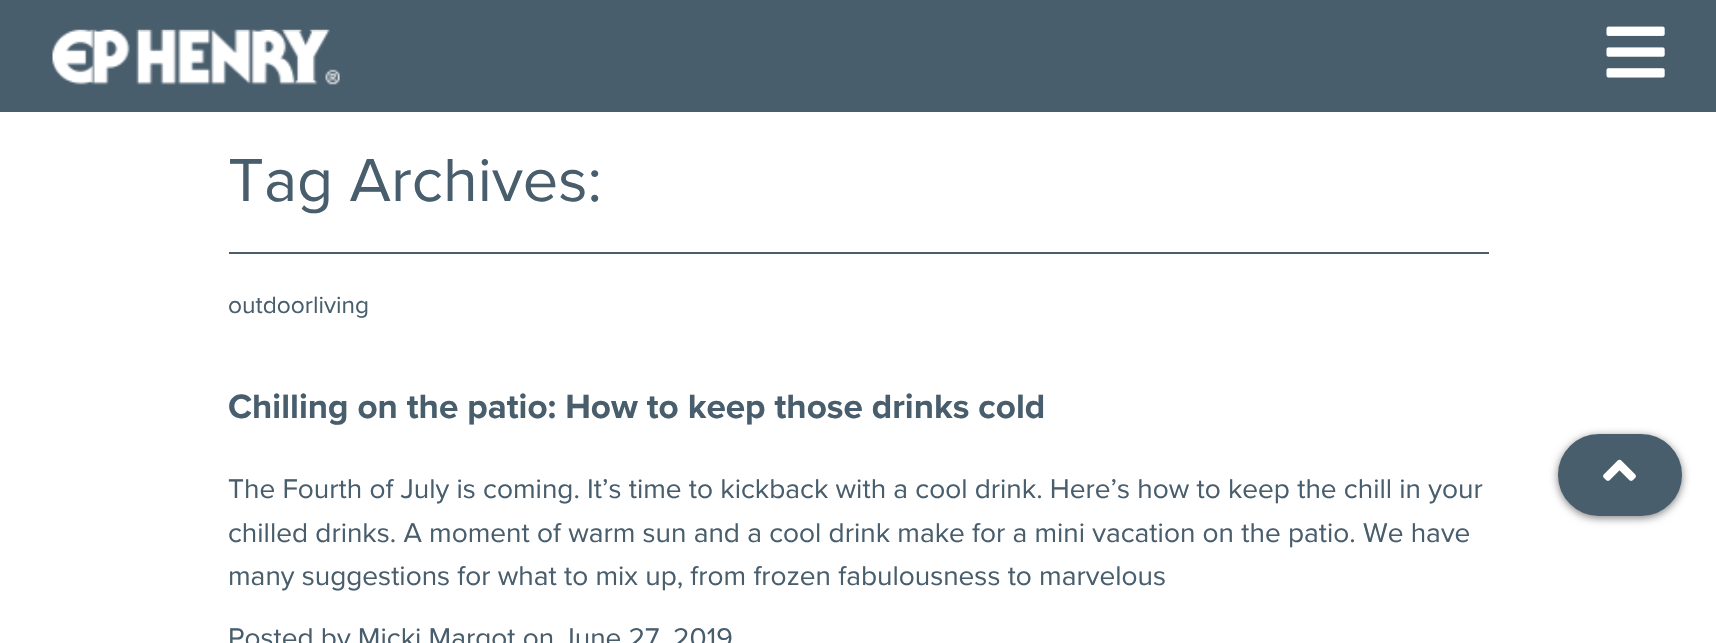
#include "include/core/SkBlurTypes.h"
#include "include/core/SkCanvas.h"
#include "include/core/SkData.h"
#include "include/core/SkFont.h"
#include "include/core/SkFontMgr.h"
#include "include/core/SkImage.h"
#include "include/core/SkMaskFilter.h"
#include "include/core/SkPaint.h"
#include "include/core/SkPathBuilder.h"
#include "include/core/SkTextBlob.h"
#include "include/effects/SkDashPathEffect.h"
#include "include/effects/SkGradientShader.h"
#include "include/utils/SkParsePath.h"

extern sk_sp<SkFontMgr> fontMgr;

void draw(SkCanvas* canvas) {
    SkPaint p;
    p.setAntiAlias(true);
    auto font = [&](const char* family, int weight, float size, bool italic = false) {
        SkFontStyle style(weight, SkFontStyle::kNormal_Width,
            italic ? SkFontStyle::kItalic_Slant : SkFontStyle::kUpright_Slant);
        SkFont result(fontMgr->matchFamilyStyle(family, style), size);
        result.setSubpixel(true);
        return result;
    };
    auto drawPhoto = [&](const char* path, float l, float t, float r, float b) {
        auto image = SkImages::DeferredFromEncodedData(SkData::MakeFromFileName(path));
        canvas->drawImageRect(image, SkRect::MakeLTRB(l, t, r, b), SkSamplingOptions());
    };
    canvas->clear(0xFFFFFFFF);
    p.setColor(0xFF495E6D);
    canvas->drawRect(SkRect::MakeLTRB(0, 0, 1716, 112), p);
    drawPhoto("media/1.png", 52, 29, 340, 85);
    drawPhoto("media/2.png", 1606, 26, 1665, 78);
    auto font1 = font("Proxima Nova", 400, 63);
    canvas->drawString("Tag Archives:", 228, 201, font1, p);
    canvas->drawRect(SkRect::MakeLTRB(229, 252, 1489, 254), p);
    auto font2 = font("Proxima Nova", 400, 24.5f);
    canvas->drawString("outdoorliving", 228, 313, font2, p);
    auto font3 = font("Proxima Nova", 700, 35);
    canvas->drawString("Chilling on the patio: How to keep those drinks cold", 228, 418, font3, p);
    auto font4 = font("Proxima Nova", 400, 28);
    {
        const struct { const char* s; float x, y; } items[] = {
            {"The Fourth of July is coming. It’s time to kickback with a cool drink. Here’s how to keep the chill in your", 228, 498},
            {"chilled drinks. A moment of warm sun and a cool drink make for a mini vacation on the patio. We have", 228, 542},
            {"many suggestions for what to mix up, from frozen fabulousness to marvelous", 228, 585},
            {"Posted by Micki Margot on June 27, 2019", 228, 647},
        };
        for (auto [s, x, y] : items) {
            canvas->drawString(s, x, y, font4, p);
        }
    }
    p.setColor(0x80000000);
    p.setMaskFilter(SkMaskFilter::MakeBlur(kNormal_SkBlurStyle, 4.5f));
    canvas->drawRoundRect(SkRect::MakeLTRB(1558, 436, 1682, 518), 41, 41, p);
    p.setMaskFilter(nullptr);
    p.setColor(0xFF495E6D);
    canvas->drawRoundRect(SkRect::MakeLTRB(1560, 436, 1680, 514), 39, 39, p);
    p.setStyle(SkPaint::kStroke_Style);
    p.setStrokeWidth(4);
    canvas->drawRoundRect(SkRect::MakeLTRB(1560, 436, 1680, 514), 39, 39, p);
    drawPhoto("media/3.png", 1603, 459, 1636, 481);
}
